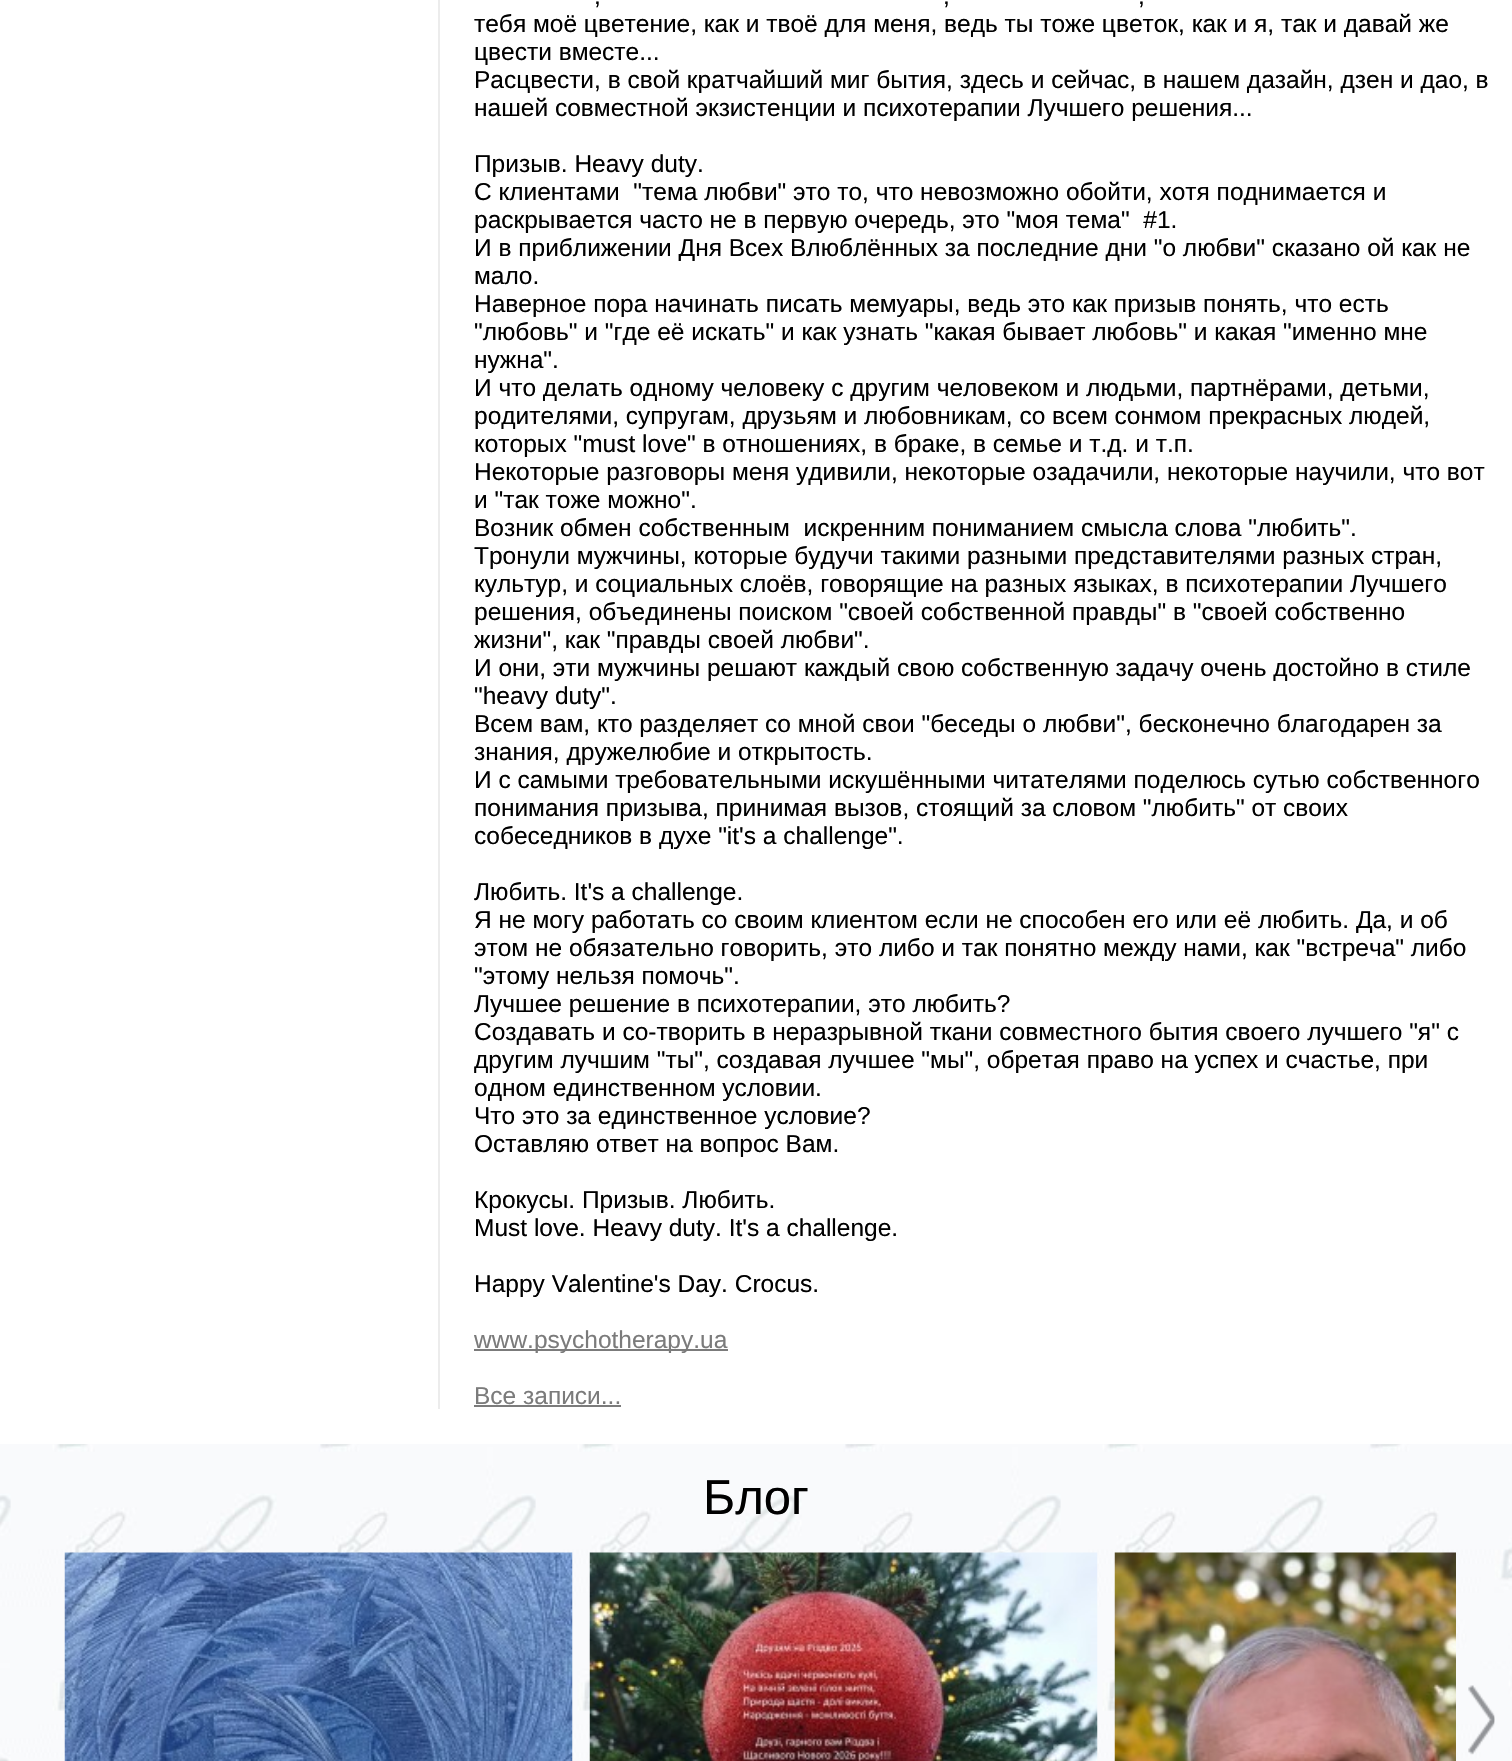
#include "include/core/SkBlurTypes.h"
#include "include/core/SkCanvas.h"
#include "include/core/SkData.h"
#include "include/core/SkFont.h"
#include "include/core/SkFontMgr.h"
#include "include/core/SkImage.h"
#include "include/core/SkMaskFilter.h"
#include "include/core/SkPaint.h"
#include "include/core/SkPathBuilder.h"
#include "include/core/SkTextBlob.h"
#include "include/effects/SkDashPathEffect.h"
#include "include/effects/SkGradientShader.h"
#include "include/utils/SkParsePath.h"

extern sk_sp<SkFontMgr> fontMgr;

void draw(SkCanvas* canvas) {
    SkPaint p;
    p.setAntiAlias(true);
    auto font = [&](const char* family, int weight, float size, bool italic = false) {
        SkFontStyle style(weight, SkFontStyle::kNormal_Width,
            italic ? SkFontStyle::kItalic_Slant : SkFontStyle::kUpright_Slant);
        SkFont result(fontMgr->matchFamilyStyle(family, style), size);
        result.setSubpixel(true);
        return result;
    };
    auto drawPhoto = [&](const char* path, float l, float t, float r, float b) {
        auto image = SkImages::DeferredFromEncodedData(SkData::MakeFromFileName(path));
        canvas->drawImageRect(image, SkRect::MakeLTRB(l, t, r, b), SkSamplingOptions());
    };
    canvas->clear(0xFFFFFFFF);
    p.setColor(0xFFECECEC);
    canvas->drawRect(SkRect::MakeLTRB(438, 0, 440, 1409), p);
    auto font1 = font("Liberation Sans", 400, 24.5f);
    p.setColor(0xFF000000);
    {
        const struct { const char* s; float x, y; } items[] = {
            {",", 594, 4},
            {",", 943, 4},
            {",", 1138, 4},
            {"тебя моё цветение, как и твоё для меня, ведь ты тоже цветок, как и я, так и давай же", 474, 32},
            {"цвести вместе...", 474, 60},
            {"Расцвести, в свой кратчайший миг бытия, здесь и сейчас, в нашем дазайн, дзен и дао, в", 474, 88},
            {"нашей совместной экзистенции и психотерапии Лучшего решения...", 474, 116},
            {"Призыв. Heavy duty.", 474, 172},
            {"С клиентами  \"тема любви\" это то, что невозможно обойти, хотя поднимается и", 474, 200},
            {"раскрывается часто не в первую очередь, это \"моя тема\"  #1.", 474, 228},
            {"И в приближении Дня Всех Влюблённых за последние дни \"о любви\" сказано ой как не", 474, 256},
            {"мало.", 474, 284},
            {"Наверное пора начинать писать мемуары, ведь это как призыв понять, что есть", 474, 312},
            {"\"любовь\" и \"где её искать\" и как узнать \"какая бывает любовь\" и какая \"именно мне", 474, 340},
            {"нужна\".", 474, 368},
            {"И что делать одному человеку с другим человеком и людьми, партнёрами, детьми,", 474, 396},
            {"родителями, супругам, друзьям и любовникам, со всем сонмом прекрасных людей,", 474, 424},
            {"которых \"must love\" в отношениях, в браке, в семье и т.д. и т.п.", 474, 452},
            {"Некоторые разговоры меня удивили, некоторые озадачили, некоторые научили, что вот", 474, 480},
            {"и \"так тоже можно\".", 474, 508},
            {"Возник обмен собственным  искренним пониманием смысла слова \"любить\".", 474, 536},
            {"Тронули мужчины, которые будучи такими разными представителями разных стран,", 474, 564},
            {"культур, и социальных слоёв, говорящие на разных языках, в психотерапии Лучшего", 474, 592},
            {"решения, объединены поиском \"своей собственной правды\" в \"своей собственно", 474, 620},
            {"жизни\", как \"правды своей любви\".", 474, 648},
            {"И они, эти мужчины решают каждый свою собственную задачу очень достойно в стиле", 474, 676},
            {"\"heavy duty\".", 474, 704},
            {"Всем вам, кто разделяет со мной свои \"беседы о любви\", бесконечно благодарен за", 474, 732},
            {"знания, дружелюбие и открытость.", 474, 760},
            {"И с самыми требовательными искушёнными читателями поделюсь сутью собственного", 474, 788},
            {"понимания призыва, принимая вызов, стоящий за словом \"любить\" от своих", 474, 816},
            {"собеседников в духе \"it's a challenge\".", 474, 844},
            {"Любить. It's a challenge.", 474, 900},
            {"Я не могу работать со своим клиентом если не способен его или её любить. Да, и об", 474, 928},
            {"этом не обязательно говорить, это либо и так понятно между нами, как \"встреча\" либо", 474, 956},
            {"\"этому нельзя помочь\".", 474, 984},
            {"Лучшее решение в психотерапии, это любить?", 474, 1012},
            {"Создавать и со-творить в неразрывной ткани совместного бытия своего лучшего \"я\" с", 474, 1040},
            {"другим лучшим \"ты\", создавая лучшее \"мы\", обретая право на успех и счастье, при", 474, 1068},
            {"одном единственном условии.", 474, 1096},
            {"Что это за единственное условие?", 474, 1124},
            {"Оставляю ответ на вопрос Вам.", 474, 1152},
            {"Крокусы. Призыв. Любить.", 474, 1208},
            {"Must love. Heavy duty. It's a challenge.", 474, 1236},
            {"Happy Valentine's Day. Crocus.", 474, 1292},
        };
        for (auto [s, x, y] : items) {
            canvas->drawString(s, x, y, font1, p);
        }
    }
    p.setColor(0xFF7B7B7B);
    canvas->drawRect(SkRect::MakeLTRB(474, 1349, 728, 1351), p);
    canvas->drawString("www.psychotherapy.ua", 474, 1348, font1, p);
    canvas->drawString("Все записи...", 474, 1404, font1, p);
    canvas->drawRect(SkRect::MakeLTRB(474, 1405, 621, 1407), p);
    drawPhoto("media/1.png", 0, 1444, 1512, 1761);
    auto font2 = font("Liberation Sans", 400, 49);
    p.setColor(0xFF000000);
    canvas->drawString("Блог", 703, 1514, font2, p);
    drawPhoto("media/2.png", 64, 1552, 573, 1761);
    drawPhoto("media/3.png", 589, 1552, 1098, 1761);
    drawPhoto("media/4.png", 1114, 1552, 1456, 1761);
    drawPhoto("media/5.png", 1468, 1685, 1495, 1755);
}
